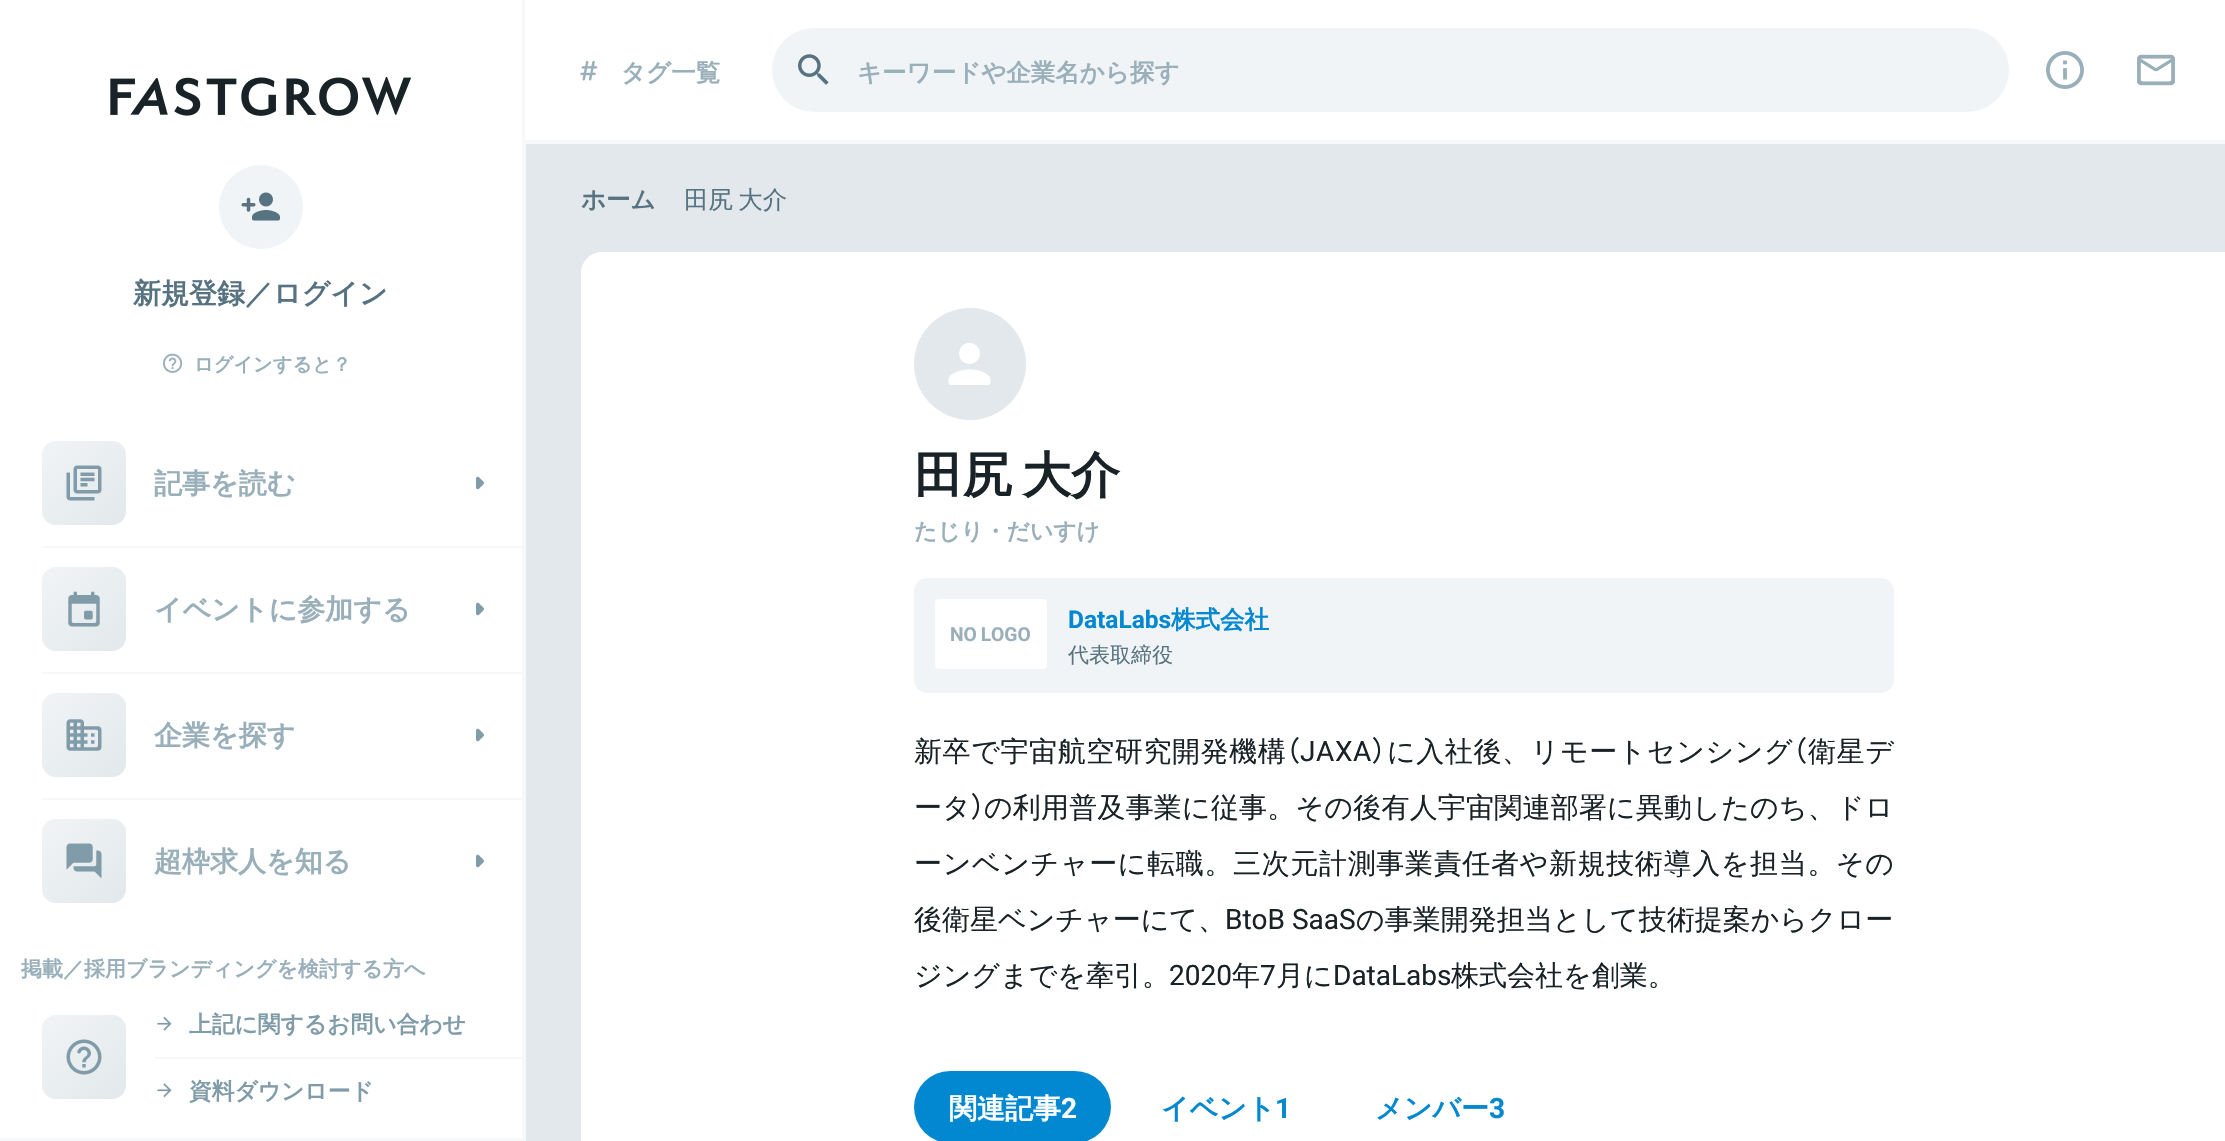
#include "include/core/SkBlurTypes.h"
#include "include/core/SkCanvas.h"
#include "include/core/SkData.h"
#include "include/core/SkFont.h"
#include "include/core/SkFontMgr.h"
#include "include/core/SkImage.h"
#include "include/core/SkMaskFilter.h"
#include "include/core/SkPaint.h"
#include "include/core/SkPathBuilder.h"
#include "include/core/SkTextBlob.h"
#include "include/effects/SkDashPathEffect.h"
#include "include/effects/SkGradientShader.h"
#include "include/utils/SkParsePath.h"

extern sk_sp<SkFontMgr> fontMgr;

void draw(SkCanvas* canvas) {
    SkPaint p;
    p.setAntiAlias(true);
    auto font = [&](const char* family, int weight, float size, bool italic = false) {
        SkFontStyle style(weight, SkFontStyle::kNormal_Width,
            italic ? SkFontStyle::kItalic_Slant : SkFontStyle::kUpright_Slant);
        SkFont result(fontMgr->matchFamilyStyle(family, style), size);
        result.setSubpixel(true);
        return result;
    };
    auto drawTracked = [&](const char* s, float x, float y, const SkFont& font, const SkPaint& ink, float letter, float word) {
        std::vector<SkGlyphID> glyphs(font.countText(s, strlen(s), SkTextEncoding::kUTF8));
        std::vector<float> xs(glyphs.size());
        font.textToGlyphs(s, strlen(s), SkTextEncoding::kUTF8, glyphs);
        font.getXPos(glyphs, xs, x);
        float extra = 0;
        for (size_t i = 0; i < glyphs.size(); i++) {
            xs[i] += extra;
            extra += letter + word * (glyphs[i] == font.unicharToGlyph(' '));
        }
        canvas->drawTextBlob(SkTextBlob::MakeFromPosHGlyphs(glyphs, xs, y, font), 0, 0, ink);
    };
    auto drawPhoto = [&](const char* path, float l, float t, float r, float b) {
        auto image = SkImages::DeferredFromEncodedData(SkData::MakeFromFileName(path));
        canvas->drawImageRect(image, SkRect::MakeLTRB(l, t, r, b), SkSamplingOptions());
    };
    canvas->clear(0xFFE2E8EB);
    {
        const struct { float l, t, r, b; SkColor color; } items[] = {
            {522, 0, 526, 1141, 0xFFF7F8F9},
            {525, 0, 2225, 140, 0xFFFFFFFF},
            {525, 140, 2225, 144, 0xFFF7F8F9},
        };
        for (auto [l, t, r, b, color] : items) {
            p.setColor(color);
            canvas->drawRect(SkRect::MakeLTRB(l, t, r, b), p);
        }
    }
    drawPhoto("media/1.png", 580, 60, 598, 81);
    auto font1 = font("WenQuanYi Zen Hei", 700, 24.5f);
    p.setColor(0xFF99AFBA);
    canvas->drawString("タグ一覧", 621, 81, font1, p);
    p.setColor(0xFFF1F4F6);
    canvas->drawRoundRect(SkRect::MakeLTRB(772, 28, 2009, 112), 42, 42, p);
    drawPhoto("media/2.png", 798, 54, 829, 85);
    p.setColor(0xFF99AFBA);
    canvas->drawString("キーワードや企業名から探す", 857, 81, font1, p);
    drawPhoto("media/3.png", 2046, 51, 2084, 89);
    drawPhoto("media/4.png", 2137, 54, 2175, 86);
    p.setColor(0xFF577381);
    canvas->drawString("ホーム", 581, 208, font1, p);
    auto font2 = font("WenQuanYi Zen Hei", 500, 24.5f);
    drawTracked("田尻 大介", 684, 208, font2, p, 0, -2);
    p.setColor(0xFFFFFFFF);
    canvas->drawRect(SkRect::MakeLTRB(0, 0, 522, 1138), p);
    drawPhoto("media/5.png", 110, 77, 411, 116);
    p.setColor(0xFFF1F4F6);
    canvas->drawCircle(261, 207, 42, p);
    drawPhoto("media/6.png", 241, 192, 280, 221);
    auto font3 = font("WenQuanYi Zen Hei", 700, 28);
    p.setColor(0xFF577381);
    canvas->drawString("新規登録／ログイン", 133, 303, font3, p);
    drawPhoto("media/7.png", 162, 353, 183, 373);
    auto font4 = font("WenQuanYi Zen Hei", 700, 19.25f);
    p.setColor(0xFF99AFBA);
    canvas->drawString("ログインすると？", 194, 371, font4, p);
    {
        const SkColor colors[] = {0xFFF1F4F6, 0xFFE2E8EB};
        const float stops[] = {0, 1};
        const SkPoint ends[] = {{42, 441}, {126, 525}};
        p.setShader(SkGradientShader::MakeLinear(ends, colors, stops, 2, SkTileMode::kClamp));
        p.setAlpha(255);
    }
    canvas->drawRoundRect(SkRect::MakeLTRB(42, 441, 126, 525), 14, 14, p);
    drawPhoto("media/8.png", 66, 465, 102, 501);
    p.setShader(nullptr);
    p.setColor(0xFF99AFBA);
    canvas->drawString("記事を読む", 154, 493, font3, p);
    drawPhoto("media/9.png", 476, 476, 484, 490);
    p.setColor(0xFFF7F8F9);
    canvas->drawRect(SkRect::MakeLTRB(42, 546, 522, 548), p);
    {
        const SkColor colors[] = {0xFFF1F4F6, 0xFFE2E8EB};
        const float stops[] = {0, 1};
        const SkPoint ends[] = {{42, 567}, {126, 651}};
        p.setShader(SkGradientShader::MakeLinear(ends, colors, stops, 2, SkTileMode::kClamp));
        p.setAlpha(255);
    }
    canvas->drawRoundRect(SkRect::MakeLTRB(42, 567, 126, 651), 14, 14, p);
    drawPhoto("media/10.png", 68, 591, 100, 627);
    p.setShader(nullptr);
    p.setColor(0xFF99AFBA);
    canvas->drawString("イベントに参加する", 154, 619, font3, p);
    drawPhoto("media/9.png", 476, 602, 484, 616);
    p.setColor(0xFFF7F8F9);
    canvas->drawRect(SkRect::MakeLTRB(42, 672, 522, 674), p);
    {
        const SkColor colors[] = {0xFFF1F4F6, 0xFFE2E8EB};
        const float stops[] = {0, 1};
        const SkPoint ends[] = {{42, 693}, {126, 777}};
        p.setShader(SkGradientShader::MakeLinear(ends, colors, stops, 2, SkTileMode::kClamp));
        p.setAlpha(255);
    }
    canvas->drawRoundRect(SkRect::MakeLTRB(42, 693, 126, 777), 14, 14, p);
    drawPhoto("media/11.png", 66, 719, 102, 751);
    p.setShader(nullptr);
    p.setColor(0xFF99AFBA);
    canvas->drawString("企業を探す", 154, 745, font3, p);
    drawPhoto("media/9.png", 476, 728, 484, 742);
    p.setColor(0xFFF7F8F9);
    canvas->drawRect(SkRect::MakeLTRB(42, 798, 522, 800), p);
    {
        const SkColor colors[] = {0xFFF1F4F6, 0xFFE2E8EB};
        const float stops[] = {0, 1};
        const SkPoint ends[] = {{42, 819}, {126, 903}};
        p.setShader(SkGradientShader::MakeLinear(ends, colors, stops, 2, SkTileMode::kClamp));
        p.setAlpha(255);
    }
    canvas->drawRoundRect(SkRect::MakeLTRB(42, 819, 126, 903), 14, 14, p);
    drawPhoto("media/12.png", 66, 843, 102, 879);
    p.setShader(nullptr);
    p.setColor(0xFF99AFBA);
    canvas->drawString("超枠求人を知る", 154, 871, font3, p);
    drawPhoto("media/9.png", 476, 854, 484, 868);
    auto font5 = font("WenQuanYi Zen Hei", 700, 21);
    canvas->drawString("掲載／採用ブランディングを検討する方へ", 21, 976, font5, p);
    {
        const SkColor colors[] = {0xFFF1F4F6, 0xFFE2E8EB};
        const float stops[] = {0, 1};
        const SkPoint ends[] = {{42, 1015}, {126, 1099}};
        p.setShader(SkGradientShader::MakeLinear(ends, colors, stops, 2, SkTileMode::kClamp));
        p.setAlpha(255);
    }
    canvas->drawRoundRect(SkRect::MakeLTRB(42, 1015, 126, 1099), 14, 14, p);
    drawPhoto("media/13.png", 66, 1039, 102, 1075);
    drawPhoto("media/14.png", 157, 1016, 172, 1031);
    auto font6 = font("WenQuanYi Zen Hei", 700, 22.75f);
    p.setShader(nullptr);
    p.setColor(0xFF819CA9);
    canvas->drawString("上記に関するお問い合わせ", 189, 1032, font6, p);
    p.setColor(0xFFF7F8F9);
    canvas->drawRect(SkRect::MakeLTRB(154, 1057, 522, 1059), p);
    drawPhoto("media/15.png", 157, 1083, 172, 1098);
    p.setColor(0xFF819CA9);
    canvas->drawString("資料ダウンロード", 189, 1099, font6, p);
    p.setColor(0xFFF7F8F9);
    canvas->drawRect(SkRect::MakeLTRB(0, 1138, 522, 1141), p);
    p.setColor(0xFFFFFFFF);
    canvas->drawPath(SkPathBuilder().moveTo(602, 252).lineTo(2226, 252).lineTo(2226, 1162).lineTo(602, 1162).cubicTo(590.5f, 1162, 581, 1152.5f, 581, 1141).lineTo(581, 273).cubicTo(581, 261.5f, 590.5f, 252, 602, 252).close().detach(), p);
    p.setColor(0xFFE2E8EB);
    canvas->drawCircle(970, 364, 56, p);
    drawPhoto("media/16.png", 948, 343, 991, 385);
    auto font7 = font("WenQuanYi Zen Hei", 700, 49);
    p.setColor(0xFF192226);
    canvas->drawString("田尻", 914, 492, font7, p);
    canvas->drawString("大介", 1022, 492, font7, p);
    p.setColor(0xFF99AFBA);
    canvas->drawString("たじり・だいすけ", 914, 539, font6, p);
    p.setColor(0xFFF1F4F6);
    canvas->drawRoundRect(SkRect::MakeLTRB(914, 578, 1894, 693), 14, 14, p);
    p.setColor(0xFFFFFFFF);
    canvas->drawRoundRect(SkRect::MakeLTRB(935, 599, 1047, 669), 4, 4, p);
    auto font8 = font("Roboto", 700, 19.25f);
    p.setColor(0xFF99AFBA);
    drawTracked("NO LOGO", 950, 641, font8, p, 0, -1);
    auto font9 = font("Roboto", 700, 24.5f);
    p.setColor(0xFF0288D1);
    canvas->drawString("DataLabs", 1068, 628, font9, p);
    canvas->drawString("株式会社", 1171, 628, font1, p);
    auto font10 = font("WenQuanYi Zen Hei", 500, 21);
    p.setColor(0xFF577381);
    canvas->drawString("代表取締役", 1068, 662, font10, p);
    auto font11 = font("WenQuanYi Zen Hei", 500, 28);
    p.setColor(0xFF192226);
    drawTracked("新卒で宇宙航空研究開発機構", 914, 761, font11, p, 0.6f, 0);
    auto font12 = font("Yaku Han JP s", 400, 28);
    drawTracked("（", 1286, 761, font12, p, 0.6f, 0);
    auto font13 = font("Roboto", 400, 28);
    drawTracked("JAXA", 1300, 761, font13, p, 0.6f, 0);
    drawTracked("）", 1372, 761, font12, p, 0.6f, 0);
    drawTracked("に入社後、リモートセンシング", 1387, 761, font11, p, 0.6f, 0);
    drawTracked("（", 1793, 761, font12, p, 0.6f, 0);
    drawTracked("衛星デ", 1808, 761, font11, p, 0.6f, 0);
    drawTracked("ータ", 914, 817, font11, p, 0.2f, 0);
    drawTracked("）", 971, 817, font12, p, 0.2f, 0);
    drawTracked("の利用普及事業に従事。その後有人宇宙関連部署に異動したのち、ドロ", 984, 817, font11, p, 0.2f, 0);
    drawTracked("ーンベンチャーに転職。三次元計測事業責任者や新規技術導入を担当。その", 914, 873, font11, p, 0.65f, 0);
    canvas->drawString("後衛星ベンチャーにて、", 914, 929, font11, p);
    canvas->drawString("BtoB SaaS", 1225, 929, font13, p);
    canvas->drawString("の事業開発担当として技術提案からクロー", 1356, 929, font11, p);
    canvas->drawString("ジングまでを牽引。", 914, 985, font11, p);
    canvas->drawString("2020", 1169, 985, font13, p);
    canvas->drawString("年", 1232, 985, font11, p);
    canvas->drawString("7", 1260, 985, font13, p);
    canvas->drawString("月に", 1276, 985, font11, p);
    canvas->drawString("DataLabs", 1333, 985, font13, p);
    canvas->drawString("株式会社を創業。", 1451, 985, font11, p);
    p.setColor(0xFF0288D1);
    canvas->drawRoundRect(SkRect::MakeLTRB(914, 1071, 1111, 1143), 36, 36, p);
    p.setColor(0xFFFFFFFF);
    canvas->drawString("関連記事", 949, 1118, font3, p);
    auto font14 = font("Roboto", 700, 28);
    canvas->drawString("2", 1061, 1118, font14, p);
    p.setColor(0xFF0288D1);
    canvas->drawString("イベント", 1161, 1118, font3, p);
    canvas->drawString("1", 1275, 1118, font14, p);
    canvas->drawString("メンバー", 1375, 1118, font3, p);
    canvas->drawString("3", 1489, 1118, font14, p);
}
